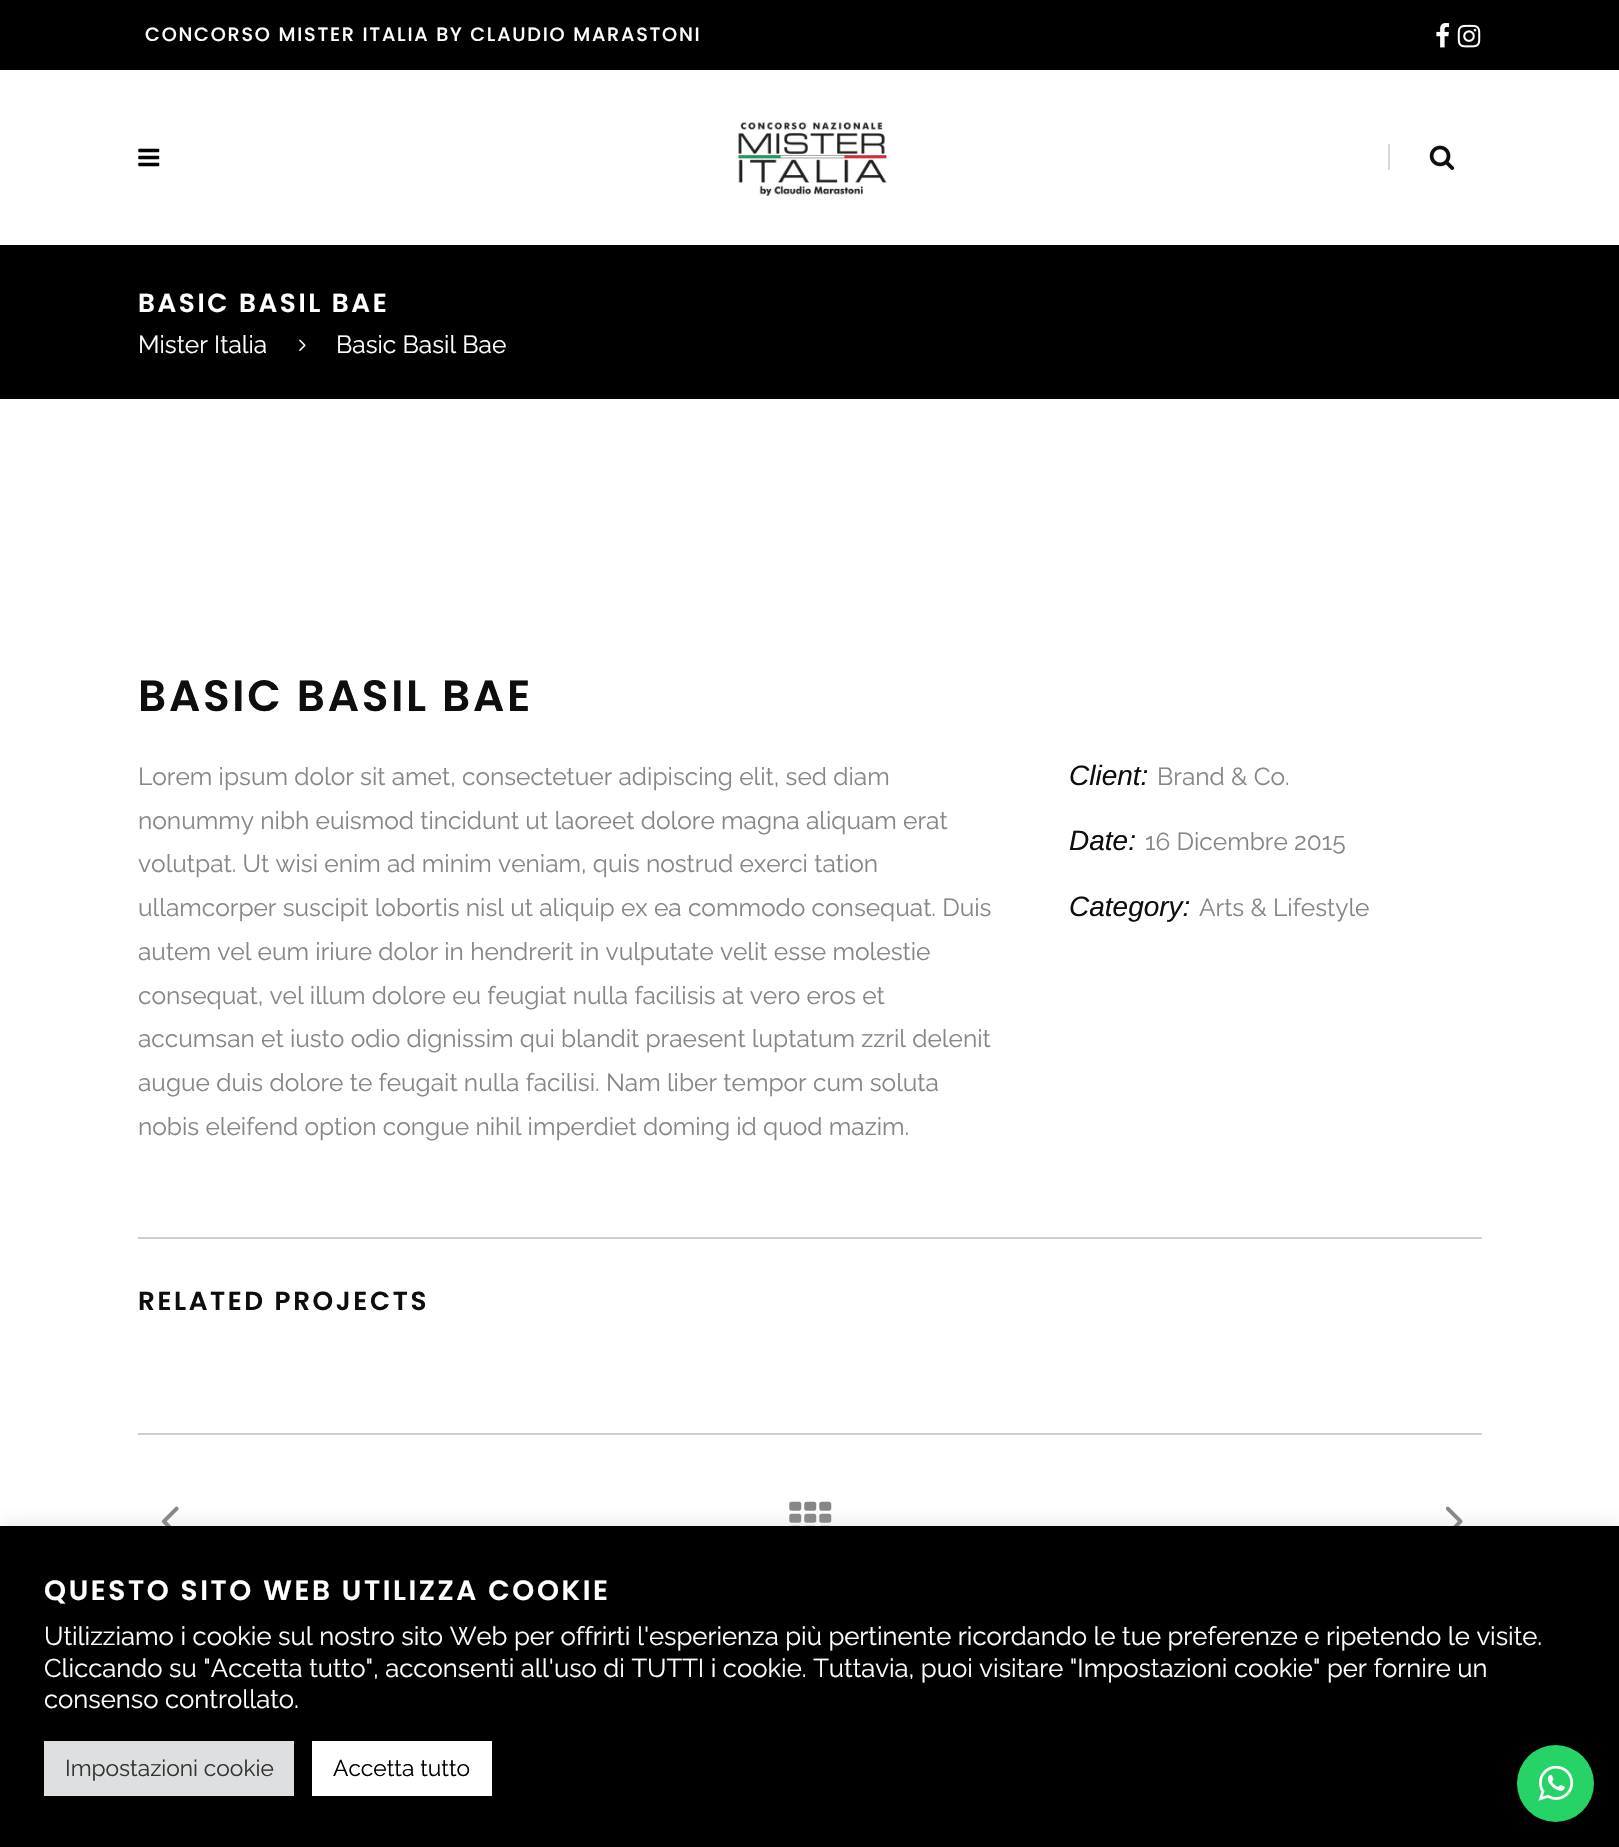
#include "include/core/SkBlurTypes.h"
#include "include/core/SkCanvas.h"
#include "include/core/SkData.h"
#include "include/core/SkFont.h"
#include "include/core/SkFontMgr.h"
#include "include/core/SkImage.h"
#include "include/core/SkMaskFilter.h"
#include "include/core/SkPaint.h"
#include "include/core/SkPathBuilder.h"
#include "include/core/SkTextBlob.h"
#include "include/effects/SkDashPathEffect.h"
#include "include/effects/SkGradientShader.h"
#include "include/utils/SkParsePath.h"

extern sk_sp<SkFontMgr> fontMgr;

void draw(SkCanvas* canvas) {
    SkPaint p;
    p.setAntiAlias(true);
    auto font = [&](const char* family, int weight, float size, bool italic = false) {
        SkFontStyle style(weight, SkFontStyle::kNormal_Width,
            italic ? SkFontStyle::kItalic_Slant : SkFontStyle::kUpright_Slant);
        SkFont result(fontMgr->matchFamilyStyle(family, style), size);
        result.setSubpixel(true);
        return result;
    };
    auto drawTracked = [&](const char* s, float x, float y, const SkFont& font, const SkPaint& ink, float letter, float word) {
        std::vector<SkGlyphID> glyphs(font.countText(s, strlen(s), SkTextEncoding::kUTF8));
        std::vector<float> xs(glyphs.size());
        font.textToGlyphs(s, strlen(s), SkTextEncoding::kUTF8, glyphs);
        font.getXPos(glyphs, xs, x);
        float extra = 0;
        for (size_t i = 0; i < glyphs.size(); i++) {
            xs[i] += extra;
            extra += letter + word * (glyphs[i] == font.unicharToGlyph(' '));
        }
        canvas->drawTextBlob(SkTextBlob::MakeFromPosHGlyphs(glyphs, xs, y, font), 0, 0, ink);
    };
    auto drawPhoto = [&](const char* path, float l, float t, float r, float b) {
        auto image = SkImages::DeferredFromEncodedData(SkData::MakeFromFileName(path));
        canvas->drawImageRect(image, SkRect::MakeLTRB(l, t, r, b), SkSamplingOptions());
    };
    canvas->clear(0xFFFFFFFF);
    p.setColor(0xFF000000);
    canvas->drawRect(SkRect::MakeLTRB(0, 0, 1619, 70), p);
    auto font1 = font("Poppins", 500, 19.25f);
    p.setColor(0xFFFFFFFF);
    drawTracked("CONCORSO MISTER ITALIA BY CLAUDIO MARASTONI", 145, 41, font1, p, 1.75f, 0);
    drawPhoto("media/1.png", 1436, 23, 1450, 48);
    drawPhoto("media/2.png", 1457, 24, 1481, 48);
    drawPhoto("media/3.png", 138, 148, 160, 167);
    drawPhoto("media/4.png", 738, 122, 887, 196);
    p.setColor(0xFFD7D7D7);
    canvas->drawRect(SkRect::MakeLTRB(1388, 144, 1390, 170), p);
    drawPhoto("media/5.png", 1429, 145, 1455, 170);
    p.setColor(0xFF000000);
    canvas->drawRect(SkRect::MakeLTRB(0, 245, 1619, 399), p);
    auto font2 = font("Poppins", 600, 26.25f);
    p.setColor(0xFFFFFFFF);
    drawTracked("BASIC BASIL BAE", 138, 312, font2, p, 2.6f, 0);
    auto font3 = font("Raleway", 400, 24.5f);
    canvas->drawString("Mister Italia", 138, 353, font3, p);
    drawPhoto("media/6.png", 299, 339, 306, 351);
    canvas->drawString("Basic Basil Bae", 336, 353, font3, p);
    auto font4 = font("Poppins", 600, 43.75f);
    p.setColor(0xFF0E0E0E);
    drawTracked("BASIC BASIL BAE", 138, 711, font4, p, 2.75f, 0);
    p.setColor(0xFF868686);
    {
        const struct { const char* s; float x, y; } items[] = {
            {"Lorem ipsum dolor sit amet, consectetuer adipiscing elit, sed diam", 138, 785},
            {"nonummy nibh euismod tincidunt ut laoreet dolore magna aliquam erat", 138, 829},
            {"volutpat. Ut wisi enim ad minim veniam, quis nostrud exerci tation", 138, 872},
            {"ullamcorper suscipit lobortis nisl ut aliquip ex ea commodo consequat. Duis", 138, 916},
            {"autem vel eum iriure dolor in hendrerit in vulputate velit esse molestie", 138, 960},
            {"consequat, vel illum dolore eu feugiat nulla facilisis at vero eros et", 138, 1004},
            {"accumsan et iusto odio dignissim qui blandit praesent luptatum zzril delenit", 138, 1047},
            {"augue duis dolore te feugait nulla facilisi. Nam liber tempor cum soluta", 138, 1091},
            {"nobis eleifend option congue nihil imperdiet doming id quod mazim.", 138, 1135},
        };
        for (auto [s, x, y] : items) {
            canvas->drawString(s, x, y, font3, p);
        }
    }
    auto font5 = font("Liberation Sans", 400, 28, true);
    p.setColor(0xFF0E0E0E);
    canvas->drawString("Client:", 1069, 785, font5, p);
    p.setColor(0xFF868686);
    canvas->drawString("Brand & Co.", 1157, 785, font3, p);
    p.setColor(0xFF0E0E0E);
    canvas->drawString("Date:", 1069, 850, font5, p);
    p.setColor(0xFF868686);
    canvas->drawString("16 Dicembre 2015", 1145, 850, font3, p);
    p.setColor(0xFF0E0E0E);
    canvas->drawString("Category:", 1069, 916, font5, p);
    p.setColor(0xFF868686);
    canvas->drawString("Arts & Lifestyle", 1199, 916, font3, p);
    p.setColor(0xFFCFCFCF);
    canvas->drawRect(SkRect::MakeLTRB(138, 1237, 1482, 1239), p);
    p.setColor(0xFF0E0E0E);
    drawTracked("RELATED PROJECTS", 138, 1310, font2, p, 2.6f, 0);
    p.setColor(0xFFCFCFCF);
    canvas->drawRect(SkRect::MakeLTRB(138, 1433, 1482, 1435), p);
    drawPhoto("media/7.png", 161, 1506, 179, 1526);
    drawPhoto("media/8.png", 789, 1501, 832, 1526);
    drawPhoto("media/9.png", 1445, 1506, 1463, 1526);
    p.setColor(0x4DACABAB);
    p.setMaskFilter(SkMaskFilter::MakeBlur(kNormal_SkBlurStyle, 9));
    canvas->drawRect(SkRect::MakeLTRB(0, 1524, 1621, 1846), p);
    p.setMaskFilter(nullptr);
    p.setColor(0xFF000000);
    canvas->drawRect(SkRect::MakeLTRB(0, 1526, 1619, 1847), p);
    auto font6 = font("Poppins", 600, 28);
    p.setColor(0xFFFFFFFF);
    drawTracked("QUESTO SITO WEB UTILIZZA COOKIE", 44, 1600, font6, p, 2.6f, 0);
    auto font7 = font("Raleway", 400, 25.67f);
    {
        const struct { const char* s; float x, y; } items[] = {
            {"Utilizziamo i cookie sul nostro sito Web per offrirti l'esperienza più pertinente ricordando le tue preferenze e ripetendo le visite.", 44, 1645},
            {"Cliccando su \"Accetta tutto\", acconsenti all'uso di TUTTI i cookie. Tuttavia, puoi visitare \"Impostazioni cookie\" per fornire un", 44, 1677},
            {"consenso controllato.", 44, 1708},
        };
        for (auto [s, x, y] : items) {
            canvas->drawString(s, x, y, font7, p);
        }
    }
    p.setColor(0xFFDEDFE0);
    canvas->drawRect(SkRect::MakeLTRB(44, 1741, 294, 1796), p);
    auto font8 = font("Raleway", 400, 22.75f);
    p.setColor(0xFF333333);
    canvas->drawString("Impostazioni cookie", 65, 1776, font8, p);
    p.setColor(0xFFFFFFFF);
    canvas->drawRect(SkRect::MakeLTRB(312, 1741, 492, 1796), p);
    p.setColor(0xFF000000);
    canvas->drawString("Accetta tutto", 333, 1776, font8, p);
    p.setColor(0xFF25D366);
    canvas->drawCircle(1555.5f, 1783.5f, 38.5f, p);
    drawPhoto("media/10.png", 1538, 1766, 1573, 1801);
}
